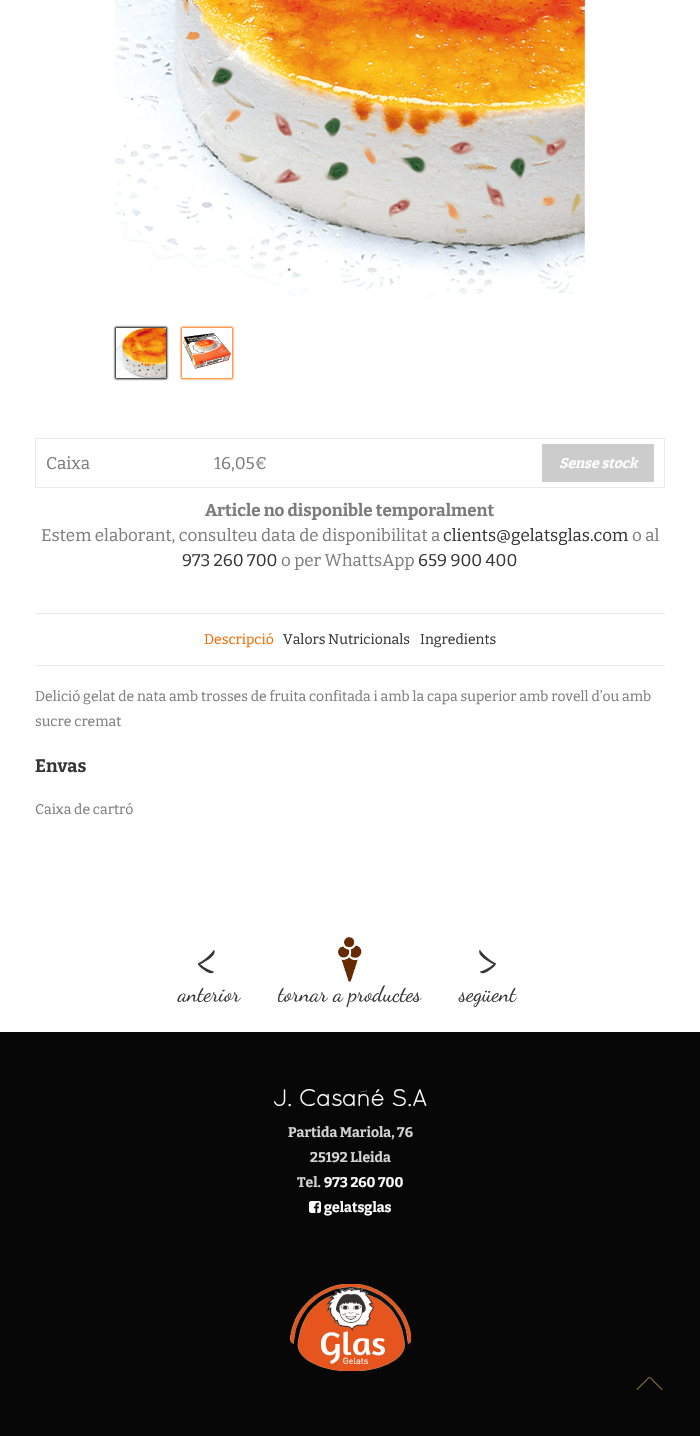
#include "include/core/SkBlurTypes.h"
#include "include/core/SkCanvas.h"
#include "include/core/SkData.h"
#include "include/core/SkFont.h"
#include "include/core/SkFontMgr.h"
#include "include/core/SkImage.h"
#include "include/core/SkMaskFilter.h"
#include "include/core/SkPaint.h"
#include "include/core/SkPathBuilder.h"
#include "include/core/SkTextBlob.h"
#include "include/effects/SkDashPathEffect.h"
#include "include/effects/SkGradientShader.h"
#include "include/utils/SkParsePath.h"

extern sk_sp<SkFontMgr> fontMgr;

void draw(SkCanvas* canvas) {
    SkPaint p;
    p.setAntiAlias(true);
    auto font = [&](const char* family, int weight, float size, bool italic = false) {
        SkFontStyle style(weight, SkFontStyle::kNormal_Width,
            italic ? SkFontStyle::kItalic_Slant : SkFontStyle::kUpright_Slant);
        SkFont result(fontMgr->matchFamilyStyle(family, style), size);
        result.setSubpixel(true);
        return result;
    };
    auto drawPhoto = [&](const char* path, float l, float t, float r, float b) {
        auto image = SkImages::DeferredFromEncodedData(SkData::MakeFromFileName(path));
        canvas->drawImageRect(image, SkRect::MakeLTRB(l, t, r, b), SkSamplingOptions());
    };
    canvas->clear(0xFFFFFFFF);
    drawPhoto("media/1.png", 115, 0, 585, 300);
    p.setColor(0xFF000000);
    p.setMaskFilter(SkMaskFilter::MakeBlur(kNormal_SkBlurStyle, 1));
    canvas->drawRect(SkRect::MakeLTRB(115, 327, 167, 379), p);
    p.setMaskFilter(nullptr);
    drawPhoto("media/2.png", 116, 328, 166, 378);
    canvas->save();
    canvas->clipPath(SkPathBuilder(SkPathFillType::kEvenOdd).moveTo(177, 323).lineTo(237, 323).lineTo(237, 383).lineTo(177, 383).close().moveTo(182, 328).lineTo(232, 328).lineTo(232, 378).lineTo(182, 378).close().detach(), true);
    p.setColor(0xFFFF6B00);
    p.setMaskFilter(SkMaskFilter::MakeBlur(kNormal_SkBlurStyle, 1));
    canvas->drawRect(SkRect::MakeLTRB(181, 327, 233, 379), p);
    p.setMaskFilter(nullptr);
    canvas->restore();
    drawPhoto("media/3.png", 183, 333, 231, 369);
    {
        const struct { float l, t, r, b; SkColor color; } items[] = {
            {35, 438, 665, 439, 0xFFEBE9E9},
            {664, 438, 665, 488, 0xFFEBE9E9},
            {35, 487, 665, 488, 0xFFEBE9E9},
            {35, 438, 36, 488, 0xFFEBE9E9},
        };
        for (auto [l, t, r, b, color] : items) {
            p.setColor(color);
            canvas->drawRect(SkRect::MakeLTRB(l, t, r, b), p);
        }
    }
    auto font1 = font("Bitter", 400, 17);
    p.setColor(0xFF7C7C7C);
    canvas->drawString("Caixa", 46, 469, font1, p);
    canvas->drawString("16,05€", 214, 469, font1, p);
    p.setColor(0xFFCCCCCC);
    canvas->drawRect(SkRect::MakeLTRB(542, 444, 654, 482), p);
    auto font2 = font("Bitter", 700, 14, true);
    p.setColor(0xFFFFFFFF);
    canvas->drawString("Sense stock", 559, 468, font2, p);
    auto font3 = font("Bitter", 700, 17);
    p.setColor(0xFF7C7C7C);
    canvas->drawString("Article no disponible temporalment", 205, 516, font3, p);
    canvas->drawString("Estem elaborant, consulteu data de disponibilitat a", 41, 541, font1, p);
    p.setColor(0xFF363636);
    canvas->drawString("clients@gelatsglas.com", 443, 541, font1, p);
    p.setColor(0xFF7C7C7C);
    canvas->drawString("o al", 632, 541, font1, p);
    p.setColor(0xFF363636);
    canvas->drawString("973 260 700", 182, 566, font1, p);
    p.setColor(0xFF7C7C7C);
    canvas->drawString("o per WhattsApp", 281, 566, font1, p);
    p.setColor(0xFF363636);
    canvas->drawString("659 900 400", 418, 566, font1, p);
    p.setColor(0xFFEBE9E9);
    canvas->drawRect(SkRect::MakeLTRB(35, 613, 665, 614), p);
    canvas->drawRect(SkRect::MakeLTRB(35, 665, 665, 666), p);
    auto font4 = font("Bitter", 400, 14);
    p.setColor(0xFFEF6B03);
    canvas->drawString("Descripció", 204, 644, font4, p);
    p.setColor(0xFF363636);
    canvas->drawString("Valors Nutricionals", 283, 644, font4, p);
    canvas->drawString("Ingredients", 420, 644, font4, p);
    p.setColor(0xFF7C7C7C);
    canvas->drawString("Delició gelat de nata amb trosses de fruita confitada i amb la capa superior amb rovell d’ou amb", 35, 701, font4, p);
    canvas->drawString("sucre cremat", 35, 726, font4, p);
    auto font5 = font("Bitter", 700, 18);
    p.setColor(0xFF363636);
    canvas->drawString("Envas", 35, 772, font5, p);
    p.setColor(0xFF7C7C7C);
    canvas->drawString("Caixa de cartró", 35, 814, font4, p);
    auto font6 = font("Dancing Script", 400, 86);
    p.setColor(0xFF363636);
    canvas->drawString("<", 196, 977, font6, p);
    auto font7 = font("Dancing Script", 400, 22);
    canvas->drawString("anterior", 178, 1001, font7, p);
    drawPhoto("media/4.png", 338, 937, 362, 982);
    canvas->drawString("tornar a productes", 278, 1001, font7, p);
    canvas->drawString(">", 474, 977, font6, p);
    canvas->drawString("següent", 459, 1001, font7, p);
    p.setColor(0xFF070707);
    canvas->drawRect(SkRect::MakeLTRB(0, 1032, 700, 1436), p);
    p.setColor(0xFFC9A74D);
    canvas->drawPath(SkPathBuilder().moveTo(636.5f, 1389.5f).lineTo(649, 1377).lineTo(649.5f, 1377.5f).lineTo(637, 1390).close().detach(), p);
    canvas->drawPath(SkPathBuilder().moveTo(650, 1377).lineTo(662.5f, 1389.5f).lineTo(662, 1390).lineTo(649.5f, 1377.5f).close().detach(), p);
    auto font8 = font("Quicksand", 700, 23);
    p.setColor(0xFFFFFFFF);
    canvas->drawString("J. Casañé S.A", 273, 1106, font8, p);
    auto font9 = font("Bitter", 700, 14);
    p.setColor(0xFFD4D4D4);
    {
        const struct { const char* s; float x, y; } items[] = {
            {"Partida Mariola, 76", 288, 1137},
            {"25192 Lleida", 310, 1162},
            {"Tel.", 297, 1187},
        };
        for (auto [s, x, y] : items) {
            canvas->drawString(s, x, y, font9, p);
        }
    }
    p.setColor(0xFFFFFFFF);
    canvas->drawString("973 260 700", 324, 1187, font9, p);
    drawPhoto("media/5.png", 309, 1201, 321, 1213);
    canvas->drawString("gelatsglas", 324, 1212, font9, p);
    drawPhoto("media/6.png", 290, 1284, 411, 1371);
}
